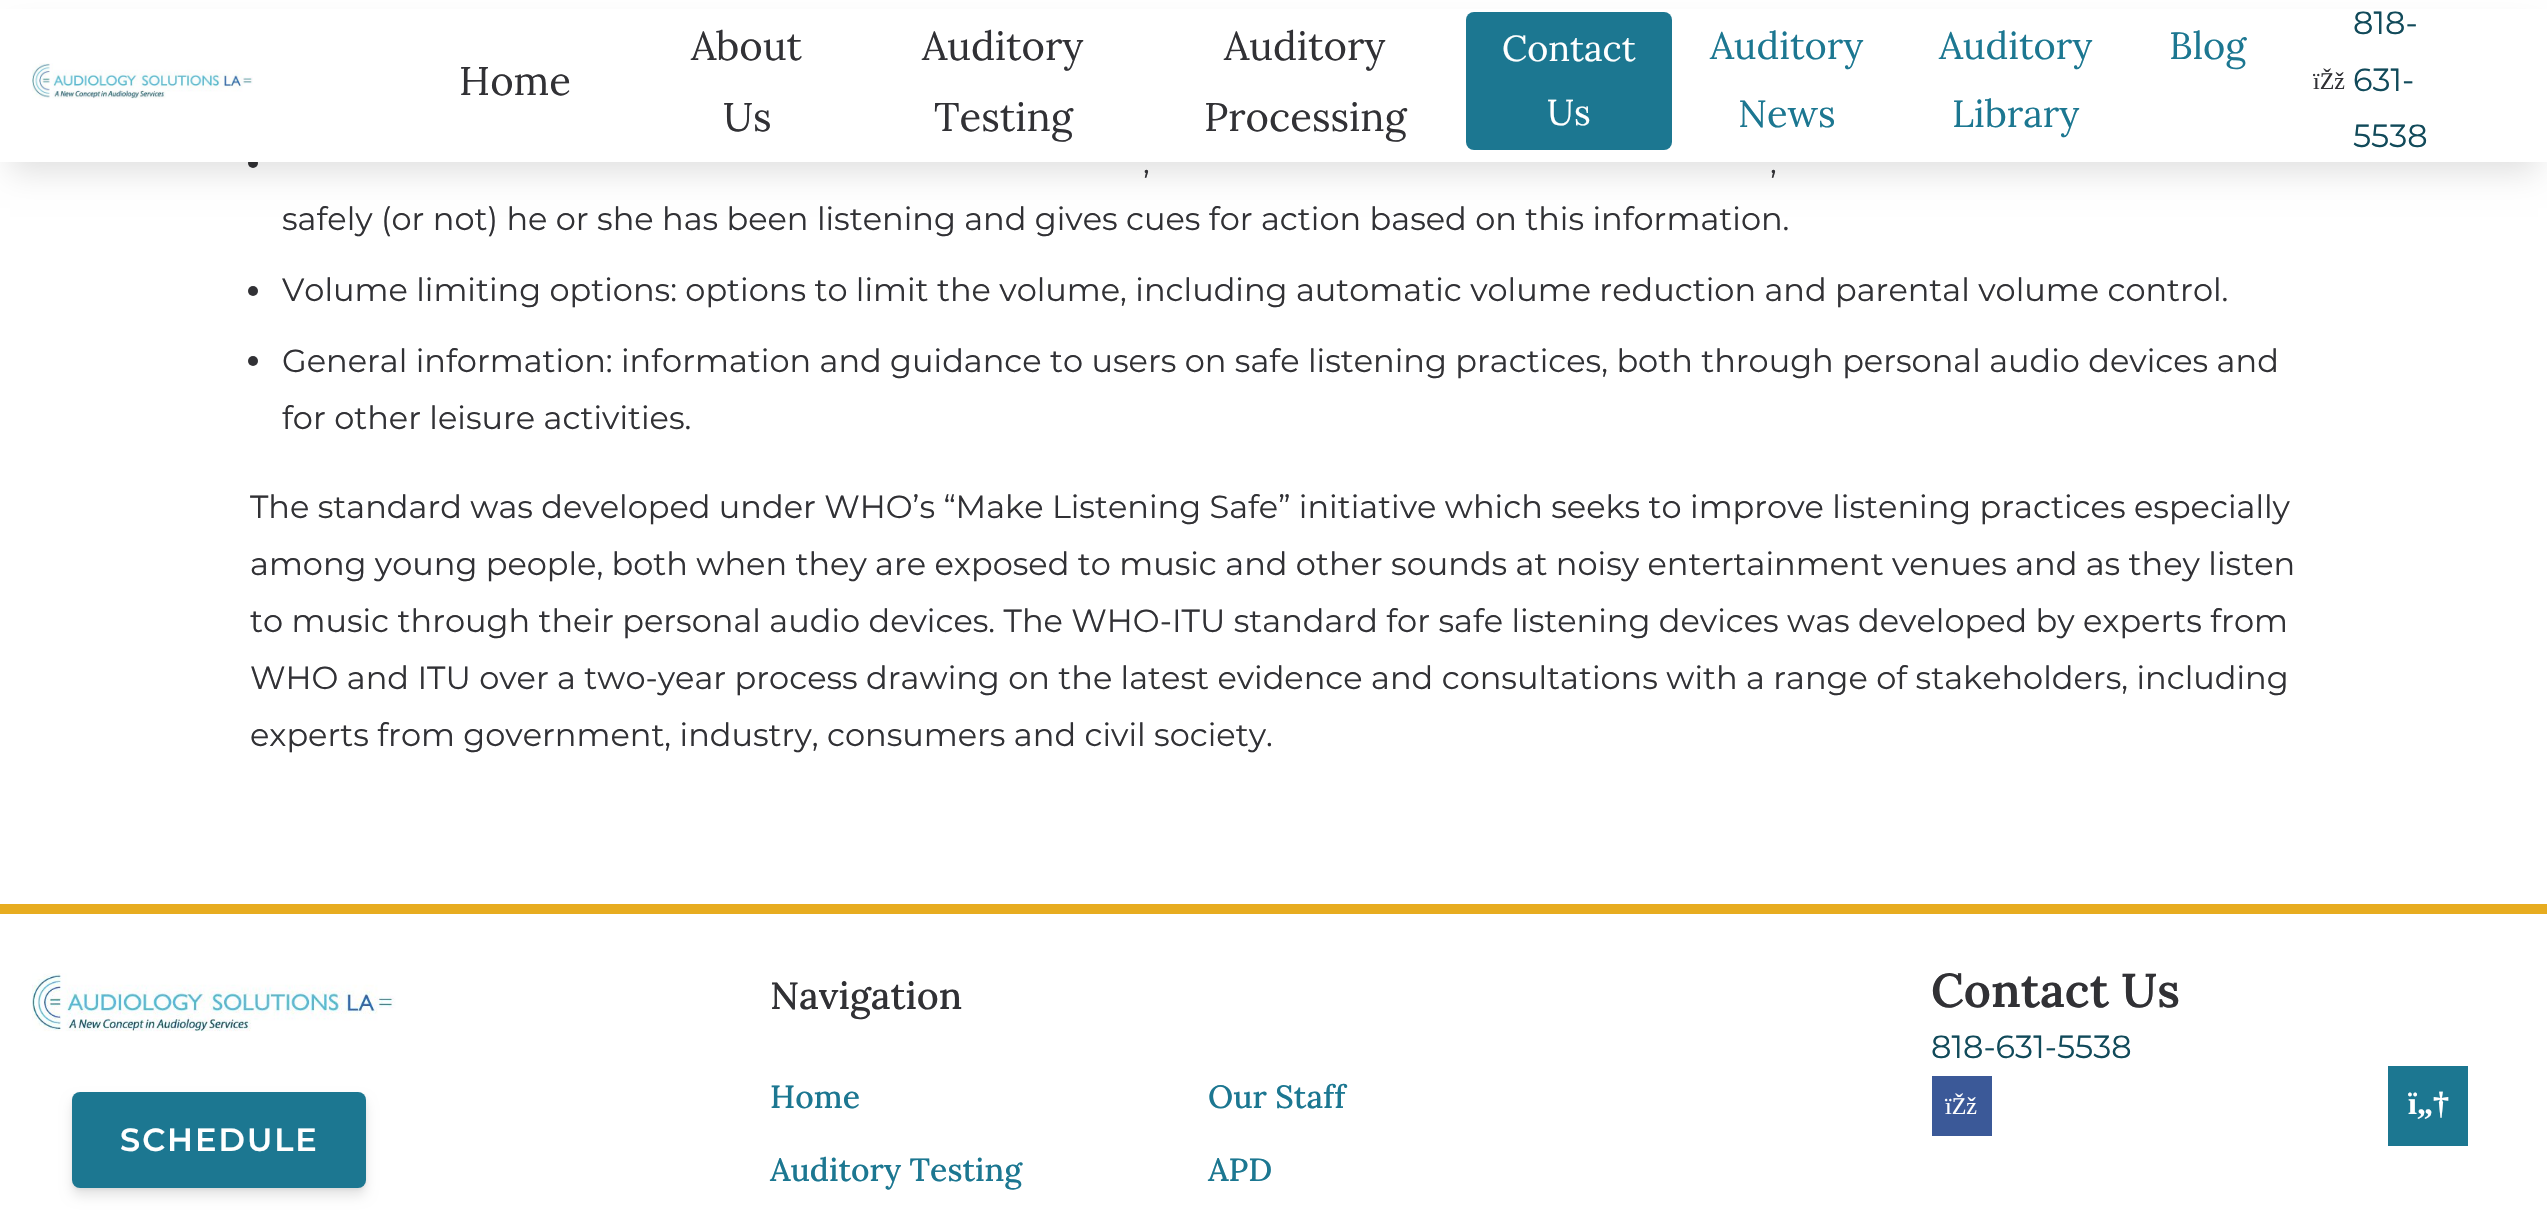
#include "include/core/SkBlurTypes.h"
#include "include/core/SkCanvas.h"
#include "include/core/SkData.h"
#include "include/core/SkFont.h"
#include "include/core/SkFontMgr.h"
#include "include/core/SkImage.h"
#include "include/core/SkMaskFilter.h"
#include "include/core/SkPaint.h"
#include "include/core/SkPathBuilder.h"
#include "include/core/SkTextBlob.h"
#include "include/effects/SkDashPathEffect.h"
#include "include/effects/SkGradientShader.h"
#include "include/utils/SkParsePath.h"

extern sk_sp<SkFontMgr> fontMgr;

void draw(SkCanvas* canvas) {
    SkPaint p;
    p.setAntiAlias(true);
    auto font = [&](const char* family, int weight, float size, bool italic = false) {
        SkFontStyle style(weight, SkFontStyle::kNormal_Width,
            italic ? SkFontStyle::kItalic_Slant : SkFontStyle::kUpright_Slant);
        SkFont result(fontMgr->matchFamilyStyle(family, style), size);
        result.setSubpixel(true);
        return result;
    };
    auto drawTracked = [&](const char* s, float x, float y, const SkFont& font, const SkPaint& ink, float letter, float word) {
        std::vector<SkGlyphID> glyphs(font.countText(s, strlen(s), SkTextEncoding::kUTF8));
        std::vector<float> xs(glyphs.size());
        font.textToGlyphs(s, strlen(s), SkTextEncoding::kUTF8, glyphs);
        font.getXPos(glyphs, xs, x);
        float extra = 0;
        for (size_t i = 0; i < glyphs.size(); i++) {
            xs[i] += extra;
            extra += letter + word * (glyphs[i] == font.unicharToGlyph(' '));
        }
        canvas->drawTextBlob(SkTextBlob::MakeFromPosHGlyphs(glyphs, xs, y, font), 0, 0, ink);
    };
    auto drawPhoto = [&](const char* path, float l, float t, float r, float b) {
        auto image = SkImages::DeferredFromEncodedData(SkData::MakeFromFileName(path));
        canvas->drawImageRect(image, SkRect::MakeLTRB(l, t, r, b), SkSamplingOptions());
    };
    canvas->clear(0xFFFFFFFF);
    p.setColor(0xFF313135);
    canvas->drawCircle(253, 163, 5, p);
    p.setColor(0x1F000000);
    p.setMaskFilter(SkMaskFilter::MakeBlur(kNormal_SkBlurStyle, 15));
    canvas->drawRect(SkRect::MakeLTRB(10, 30, 2538, 172), p);
    p.setMaskFilter(nullptr);
    p.setColor(0xFFFFFFFF);
    canvas->drawRect(SkRect::MakeLTRB(0, 9, 2547, 162), p);
    drawPhoto("media/1.png", 32, 63, 253, 99);
    auto font1 = font("Lora", 400, 40);
    p.setColor(0xFF313135);
    {
        const struct { const char* s; float x, y; } items[] = {
            {"Home", 459, 95},
            {"About", 691, 60},
            {"Us", 723, 131},
            {"Auditory", 922, 60},
            {"Testing", 934, 131},
            {"Auditory", 1224, 60},
            {"Processing", 1204, 131},
        };
        for (auto [s, x, y] : items) {
            canvas->drawString(s, x, y, font1, p);
        }
    }
    p.setColor(0xFF1C7791);
    canvas->drawRoundRect(SkRect::MakeLTRB(1466, 12, 1672, 150), 8, 8, p);
    auto font2 = font("Lora", 400, 36);
    p.setColor(0xFFFFFFFF);
    canvas->drawString("Contact", 1502, 61, font2, p);
    canvas->drawString("Us", 1547, 125, font2, p);
    auto font3 = font("Lora", 400, 38);
    p.setColor(0xFF1C7791);
    {
        const struct { const char* s; float x, y; } items[] = {
            {"Auditory", 1710, 59},
            {"News", 1738, 127},
            {"Auditory", 1939, 59},
            {"Library", 1952, 127},
            {"Blog", 2169, 59},
        };
        for (auto [s, x, y] : items) {
            canvas->drawString(s, x, y, font3, p);
        }
    }
    auto font4 = font("Liberation Serif", 400, 24);
    p.setColor(0xFF313135);
    canvas->drawString("ïŽž", 2313, 89, font4, p);
    auto font5 = font("Montserrat", 400, 32);
    p.setColor(0xFF114A5A);
    {
        const struct { const char* s; float x, y; } items[] = {
            {"818-", 2353, 34},
            {"631-", 2353, 91},
            {"5538", 2353, 147},
        };
        for (auto [s, x, y] : items) {
            canvas->drawString(s, x, y, font5, p);
        }
    }
    p.setColor(0xFF313135);
    {
        const struct { const char* s; float x, y; } items[] = {
            {",", 1143, 173},
            {",", 1770, 173},
            {"safely (or not) he or she has been listening and gives cues for action based on this information.", 282, 230},
        };
        for (auto [s, x, y] : items) {
            canvas->drawString(s, x, y, font5, p);
        }
    }
    canvas->drawCircle(253, 291, 5, p);
    canvas->drawString("Volume limiting options: options to limit the volume, including automatic volume reduction and parental volume control.", 282, 301, font5, p);
    canvas->drawCircle(253, 361, 5, p);
    {
        const struct { const char* s; float x, y; } items[] = {
            {"General information: information and guidance to users on safe listening practices, both through personal audio devices and", 282, 372},
            {"for other leisure activities.", 282, 429},
            {"The standard was developed under WHO’s “Make Listening Safe” initiative which seeks to improve listening practices especially", 250, 518},
            {"among young people, both when they are exposed to music and other sounds at noisy entertainment venues and as they listen", 250, 575},
            {"to music through their personal audio devices. The WHO-ITU standard for safe listening devices was developed by experts from", 250, 632},
            {"WHO and ITU over a two-year process drawing on the latest evidence and consultations with a range of stakeholders, including", 250, 689},
            {"experts from government, industry, consumers and civil society.", 250, 746},
        };
        for (auto [s, x, y] : items) {
            canvas->drawString(s, x, y, font5, p);
        }
    }
    p.setColor(0xFFE7AC20);
    canvas->drawRect(SkRect::MakeLTRB(0, 904, 2547, 914), p);
    drawPhoto("media/2.png", 32, 973, 396, 1032);
    p.setColor(0x1A000000);
    p.setMaskFilter(SkMaskFilter::MakeBlur(kNormal_SkBlurStyle, 6));
    canvas->drawRoundRect(SkRect::MakeLTRB(72, 1100, 366, 1196), 8, 8, p);
    p.setMaskFilter(nullptr);
    p.setColor(0x0D000000);
    p.setMaskFilter(SkMaskFilter::MakeBlur(kNormal_SkBlurStyle, 1.5f));
    canvas->drawRoundRect(SkRect::MakeLTRB(72, 1094, 366, 1190), 8, 8, p);
    p.setMaskFilter(nullptr);
    p.setColor(0xFF1C7791);
    canvas->drawRoundRect(SkRect::MakeLTRB(72, 1092, 366, 1188), 8, 8, p);
    auto font6 = font("Montserrat", 600, 32);
    p.setColor(0xFFFFFFFF);
    drawTracked("SCHEDULE", 120, 1151, font6, p, 2, 0);
    auto font7 = font("Lora", 500, 38);
    p.setColor(0xFF313135);
    canvas->drawString("Navigation", 770, 1009, font7, p);
    auto font8 = font("Lora", 500, 32);
    p.setColor(0xFF1C7791);
    {
        const struct { const char* s; float x, y; } items[] = {
            {"Home", 770, 1108},
            {"Our Staff", 1208, 1108},
            {"Auditory Testing", 770, 1181},
            {"APD", 1208, 1181},
        };
        for (auto [s, x, y] : items) {
            canvas->drawString(s, x, y, font8, p);
        }
    }
    auto font9 = font("Lora", 600, 47.5f);
    p.setColor(0xFF313135);
    canvas->drawString("Contact Us", 1931, 1007, font9, p);
    p.setColor(0xFF114A5A);
    canvas->drawString("818-631-5538", 1931, 1058, font5, p);
    p.setColor(0xFF3B5998);
    canvas->drawRect(SkRect::MakeLTRB(1932, 1076, 1992, 1136), p);
    p.setColor(0xFFFFFFFF);
    canvas->drawString("ïŽž", 1945, 1114, font4, p);
    p.setColor(0xFF1C7791);
    canvas->drawRect(SkRect::MakeLTRB(2388, 1066, 2468, 1146), p);
    auto font10 = font("Liberation Serif", 700, 32);
    p.setColor(0xFFFFFFFF);
    canvas->drawString("ï„†", 2408, 1114, font10, p);
}
